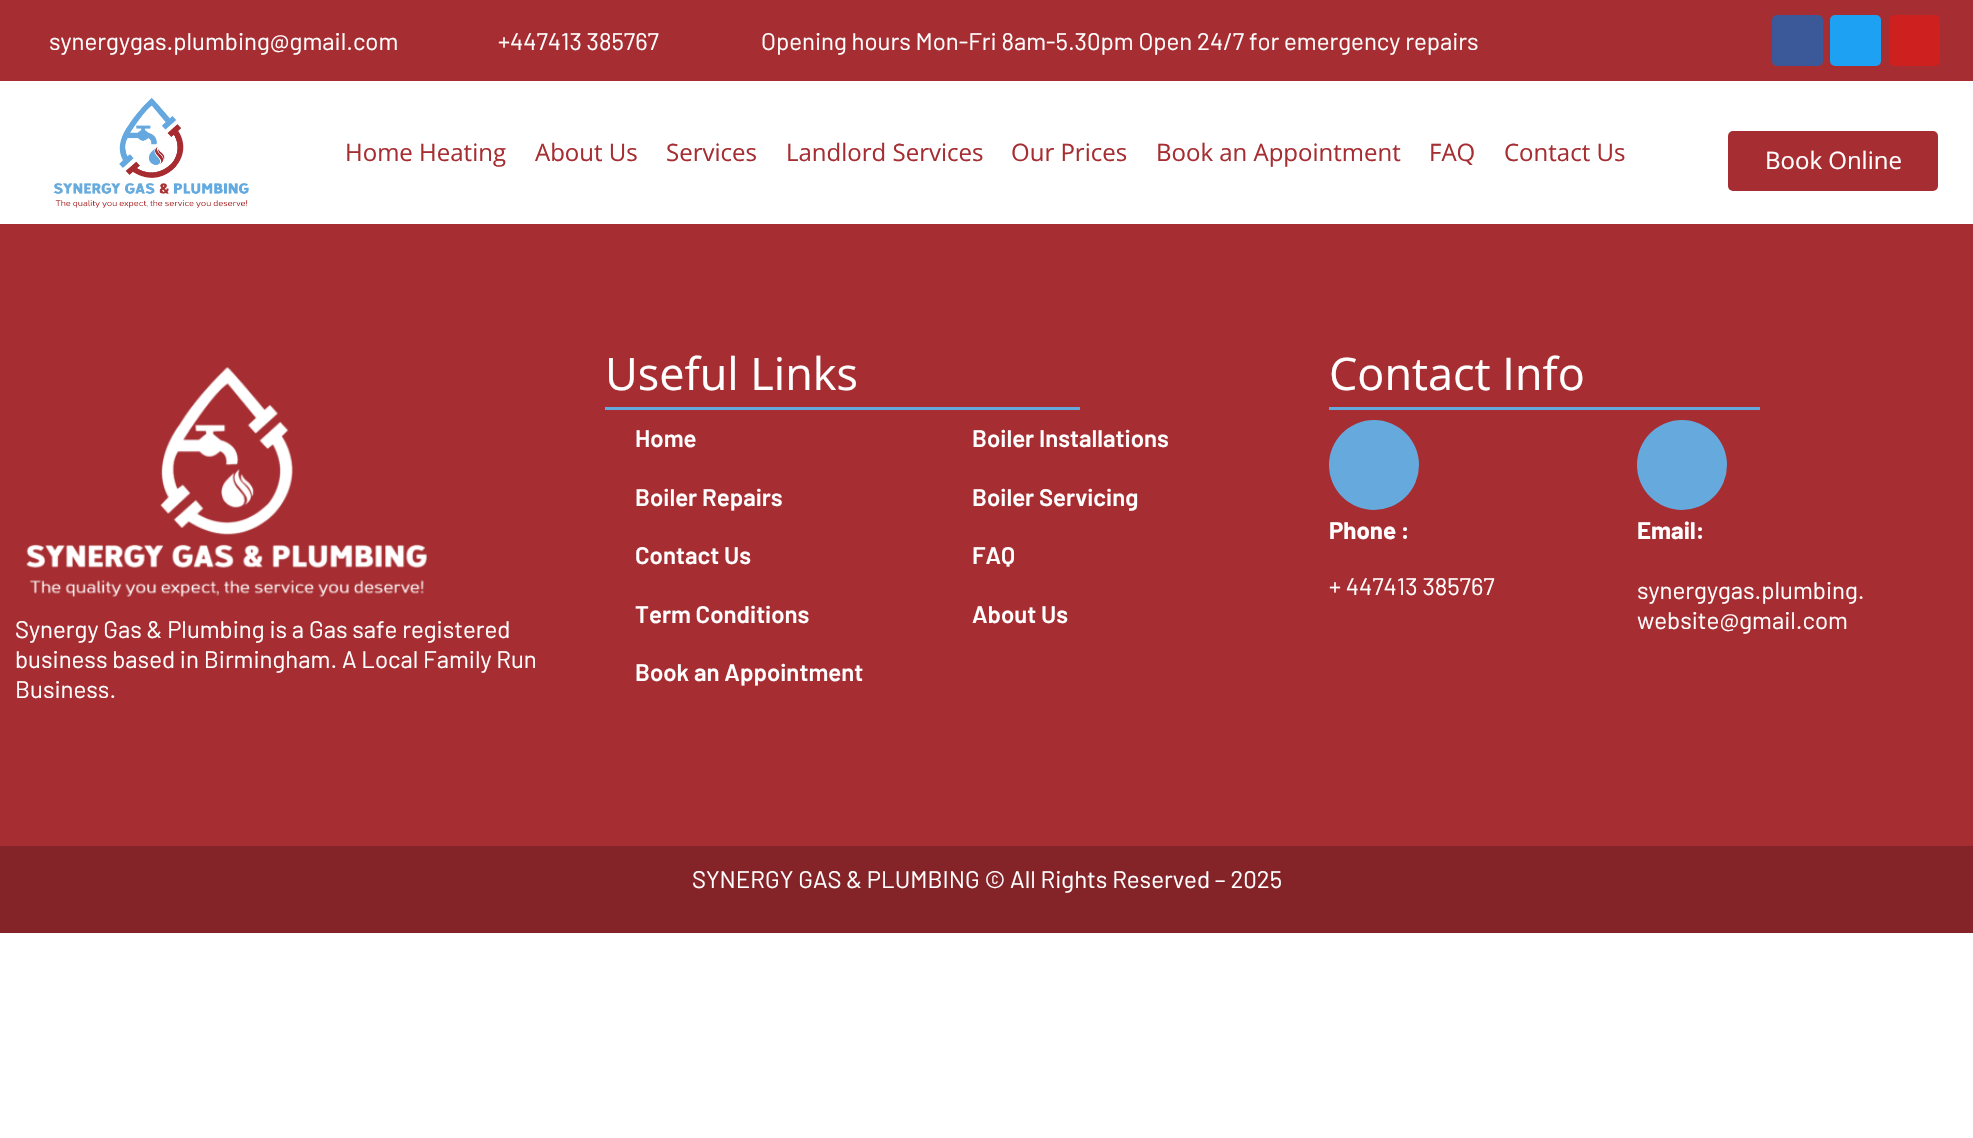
#include "include/core/SkBlurTypes.h"
#include "include/core/SkCanvas.h"
#include "include/core/SkData.h"
#include "include/core/SkFont.h"
#include "include/core/SkFontMgr.h"
#include "include/core/SkImage.h"
#include "include/core/SkMaskFilter.h"
#include "include/core/SkPaint.h"
#include "include/core/SkPathBuilder.h"
#include "include/core/SkTextBlob.h"
#include "include/effects/SkDashPathEffect.h"
#include "include/effects/SkGradientShader.h"
#include "include/utils/SkParsePath.h"

extern sk_sp<SkFontMgr> fontMgr;

void draw(SkCanvas* canvas) {
    SkPaint p;
    p.setAntiAlias(true);
    auto font = [&](const char* family, int weight, float size, bool italic = false) {
        SkFontStyle style(weight, SkFontStyle::kNormal_Width,
            italic ? SkFontStyle::kItalic_Slant : SkFontStyle::kUpright_Slant);
        SkFont result(fontMgr->matchFamilyStyle(family, style), size);
        result.setSubpixel(true);
        return result;
    };
    auto drawPhoto = [&](const char* path, float l, float t, float r, float b) {
        auto image = SkImages::DeferredFromEncodedData(SkData::MakeFromFileName(path));
        canvas->drawImageRect(image, SkRect::MakeLTRB(l, t, r, b), SkSamplingOptions());
    };
    canvas->clear(0xFFFFFFFF);
    p.setColor(0xFFA62D31);
    canvas->drawRect(SkRect::MakeLTRB(0, 0, 1973, 81), p);
    auto font1 = font("Barlow", 400, 24);
    p.setColor(0xFFFFFFFF);
    {
        const struct { const char* s; float x, y; } items[] = {
            {"synergygas.plumbing@gmail.com", 49, 50},
            {"+447413 385767", 498, 50},
            {"Opening hours Mon-Fri 8am-5.30pm Open 24/7 for emergency repairs", 761, 50},
        };
        for (auto [s, x, y] : items) {
            canvas->drawString(s, x, y, font1, p);
        }
    }
    p.setColor(0xFF3B5998);
    canvas->drawRoundRect(SkRect::MakeLTRB(1772, 15, 1823, 66), 5, 5, p);
    p.setColor(0xFF1DA1F2);
    canvas->drawRoundRect(SkRect::MakeLTRB(1830, 15, 1881, 66), 5, 5, p);
    p.setColor(0xFFCD201F);
    canvas->drawRoundRect(SkRect::MakeLTRB(1889, 15, 1940, 66), 5, 5, p);
    drawPhoto("media/1.png", 53, 98, 249, 208);
    auto font2 = font("Open Sans", 400, 24);
    p.setColor(0xFFA62D31);
    {
        const struct { const char* s; float x, y; } items[] = {
            {"Home Heating", 345, 161},
            {"About Us", 535, 161},
            {"Services", 666, 161},
            {"Landlord Services", 786, 161},
            {"Our Prices", 1011, 161},
            {"Book an Appointment", 1156, 161},
            {"FAQ", 1429, 161},
            {"Contact Us", 1504, 161},
        };
        for (auto [s, x, y] : items) {
            canvas->drawString(s, x, y, font2, p);
        }
    }
    canvas->drawRoundRect(SkRect::MakeLTRB(1728, 131, 1938, 191), 5, 5, p);
    p.setColor(0xFFFFFFFF);
    canvas->drawString("Book Online", 1765, 169, font2, p);
    p.setColor(0xFFA62D31);
    canvas->drawRect(SkRect::MakeLTRB(0, 224, 1973, 846), p);
    auto font3 = font("Open Sans", 400, 45);
    p.setColor(0xFFFFFFFF);
    canvas->drawString("Useful Links", 605, 390, font3, p);
    p.setColor(0xFF65A9DD);
    canvas->drawRect(SkRect::MakeLTRB(605, 407, 1080, 410), p);
    auto font4 = font("Barlow", 600, 24);
    p.setColor(0xFFFFFFFF);
    {
        const struct { const char* s; float x, y; } items[] = {
            {"Home", 635, 447},
            {"Boiler Repairs", 635, 506},
            {"Contact Us", 635, 564},
            {"Term Conditions", 635, 623},
            {"Book an Appointment", 635, 681},
            {"Boiler Installations", 972, 447},
            {"Boiler Servicing", 972, 506},
            {"FAQ", 972, 564},
            {"About Us", 972, 623},
        };
        for (auto [s, x, y] : items) {
            canvas->drawString(s, x, y, font4, p);
        }
    }
    canvas->drawString("Contact Info", 1329, 390, font3, p);
    p.setColor(0xFF65A9DD);
    canvas->drawRect(SkRect::MakeLTRB(1329, 407, 1760, 410), p);
    canvas->drawCircle(1374, 465, 45, p);
    auto font5 = font("Barlow", 700, 24);
    p.setColor(0xFFFFFFFF);
    canvas->drawString("Phone :", 1329, 539, font5, p);
    canvas->drawString("+ 447413 385767", 1329, 595, font1, p);
    p.setColor(0xFF65A9DD);
    canvas->drawCircle(1682, 465, 45, p);
    p.setColor(0xFFFFFFFF);
    canvas->drawString("Email:", 1637, 539, font5, p);
    canvas->drawString("synergygas.plumbing.", 1637, 599, font1, p);
    canvas->drawString("website@gmail.com", 1637, 629, font1, p);
    drawPhoto("media/2.png", 26, 367, 427, 597);
    {
        const struct { const char* s; float x, y; } items[] = {
            {"Synergy Gas & Plumbing is a Gas safe registered", 15, 638},
            {"business based in Birmingham. A Local Family Run", 15, 668},
            {"Business.", 15, 698},
        };
        for (auto [s, x, y] : items) {
            canvas->drawString(s, x, y, font1, p);
        }
    }
    p.setColor(0xFF842429);
    canvas->drawRect(SkRect::MakeLTRB(0, 846, 1973, 933), p);
    p.setColor(0xFFFFFFFF);
    canvas->drawString("SYNERGY GAS & PLUMBING © All Rights Reserved – 2025", 692, 888, font1, p);
}
